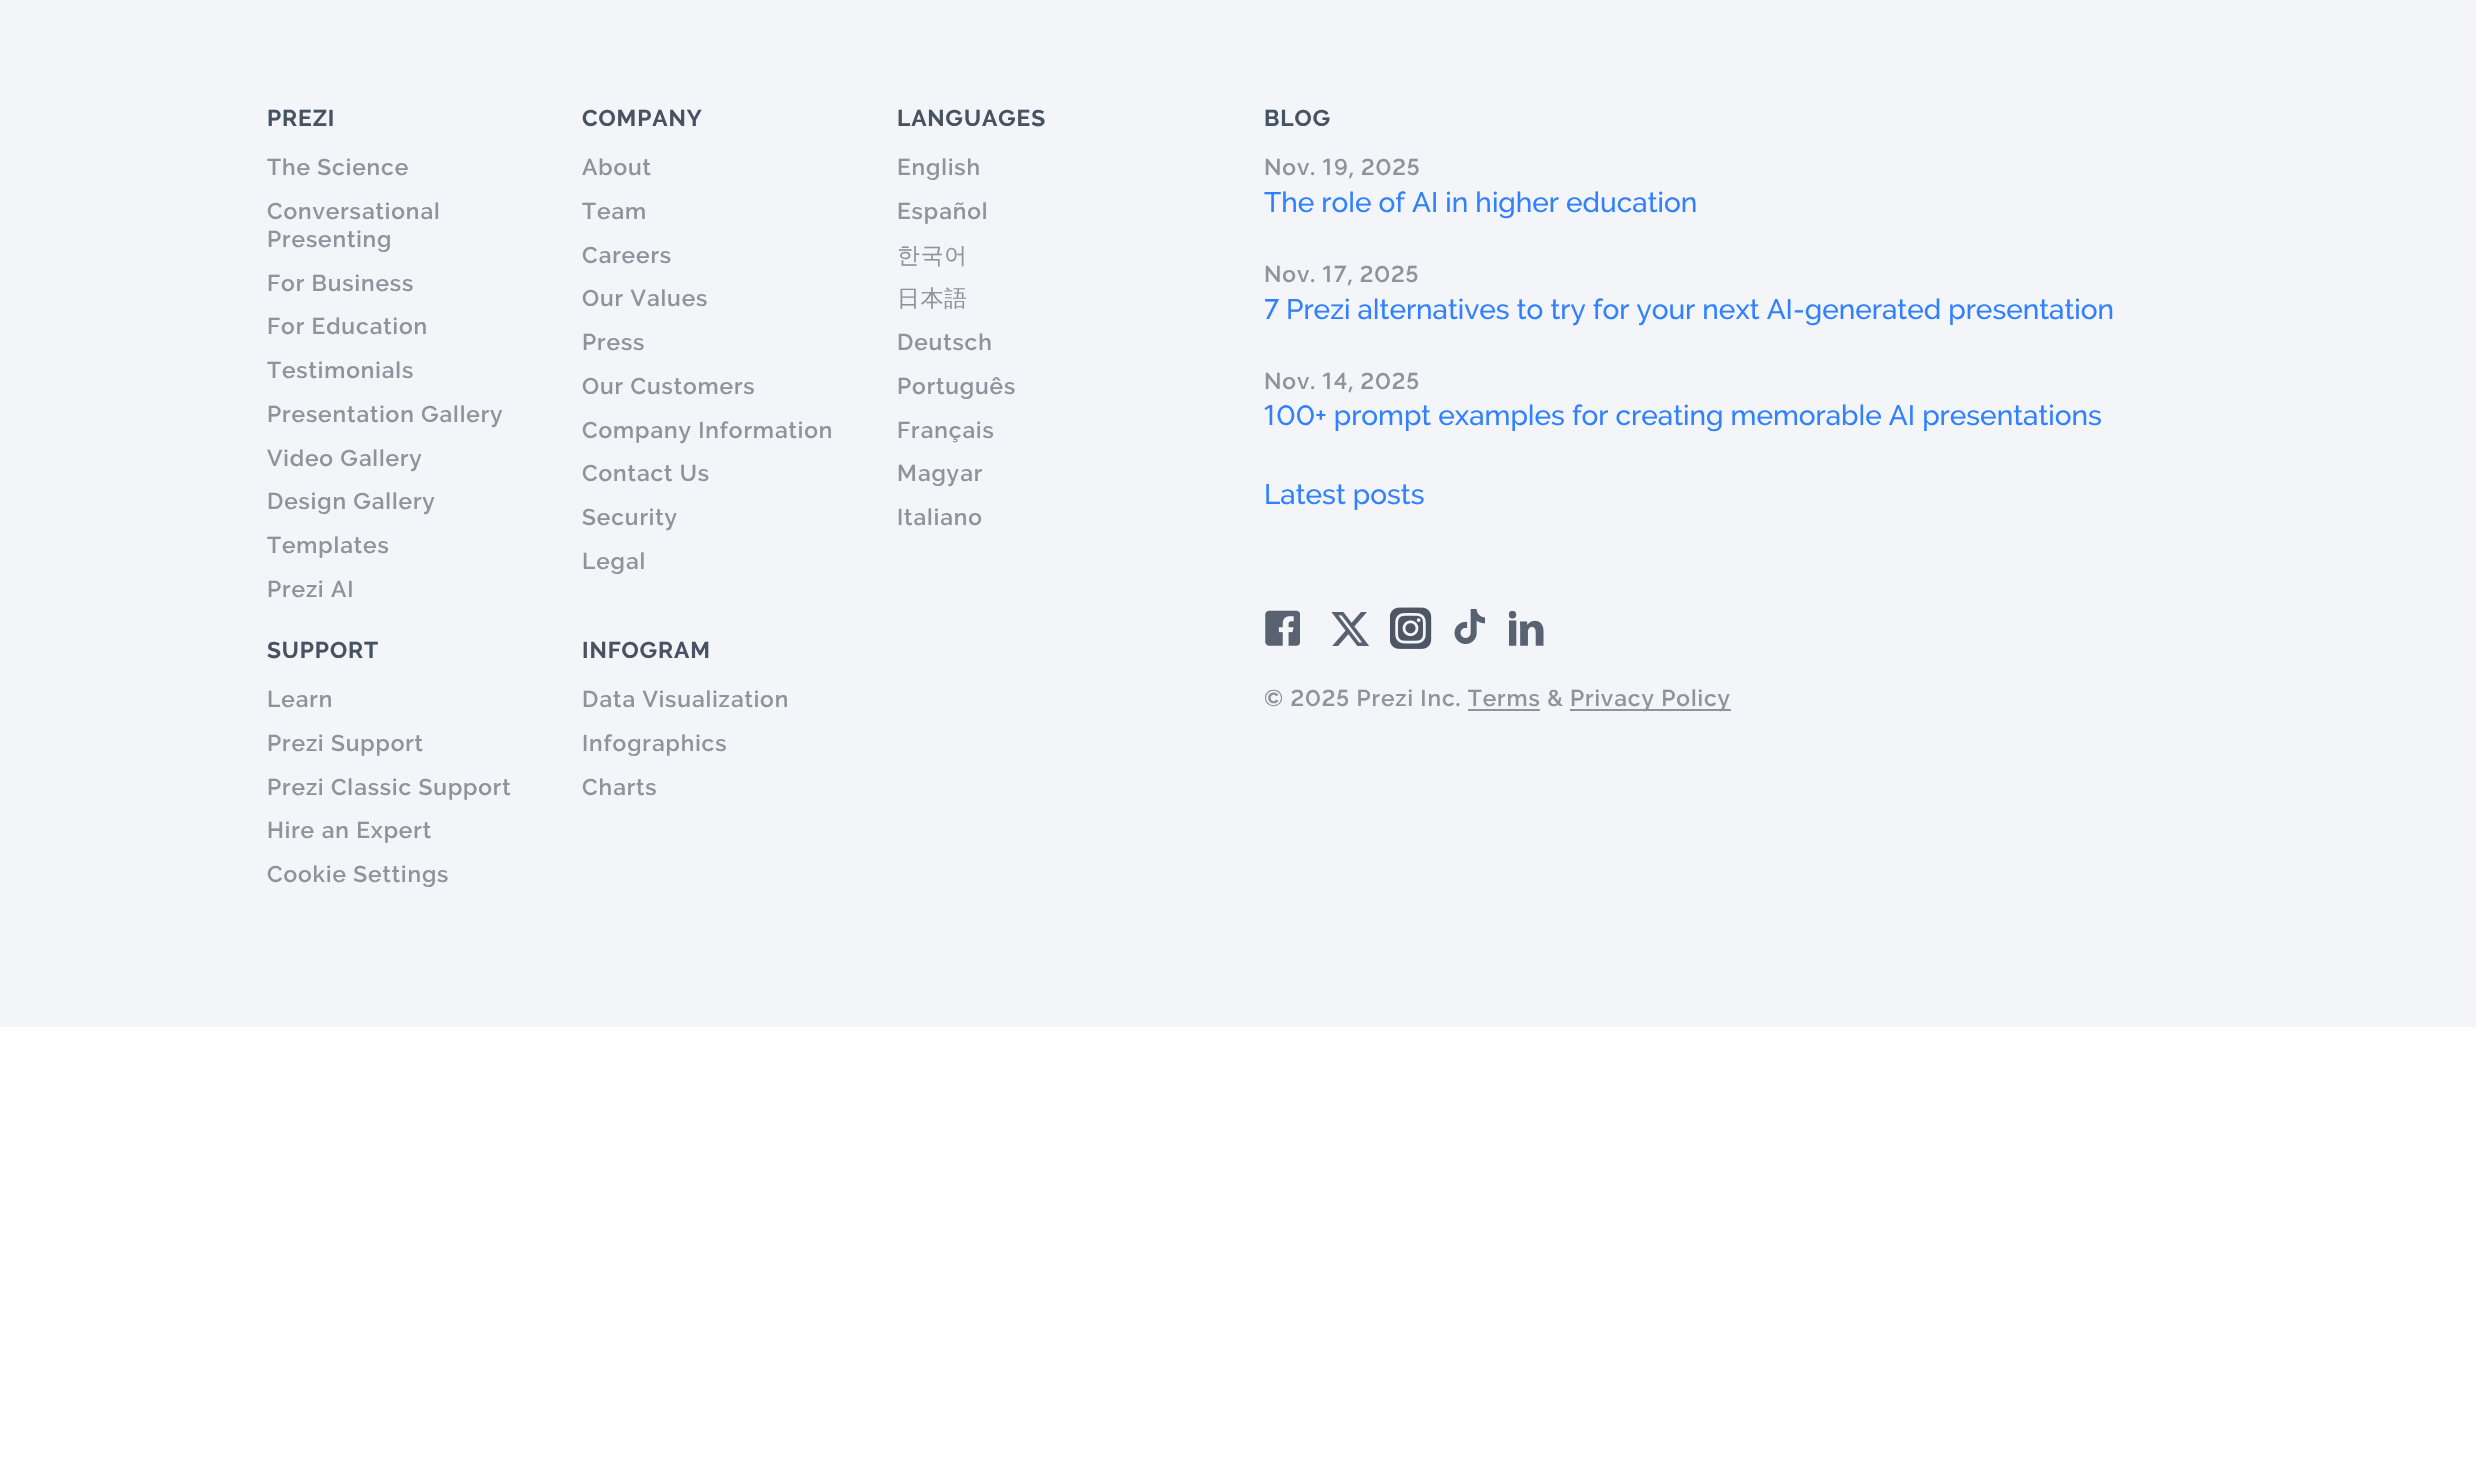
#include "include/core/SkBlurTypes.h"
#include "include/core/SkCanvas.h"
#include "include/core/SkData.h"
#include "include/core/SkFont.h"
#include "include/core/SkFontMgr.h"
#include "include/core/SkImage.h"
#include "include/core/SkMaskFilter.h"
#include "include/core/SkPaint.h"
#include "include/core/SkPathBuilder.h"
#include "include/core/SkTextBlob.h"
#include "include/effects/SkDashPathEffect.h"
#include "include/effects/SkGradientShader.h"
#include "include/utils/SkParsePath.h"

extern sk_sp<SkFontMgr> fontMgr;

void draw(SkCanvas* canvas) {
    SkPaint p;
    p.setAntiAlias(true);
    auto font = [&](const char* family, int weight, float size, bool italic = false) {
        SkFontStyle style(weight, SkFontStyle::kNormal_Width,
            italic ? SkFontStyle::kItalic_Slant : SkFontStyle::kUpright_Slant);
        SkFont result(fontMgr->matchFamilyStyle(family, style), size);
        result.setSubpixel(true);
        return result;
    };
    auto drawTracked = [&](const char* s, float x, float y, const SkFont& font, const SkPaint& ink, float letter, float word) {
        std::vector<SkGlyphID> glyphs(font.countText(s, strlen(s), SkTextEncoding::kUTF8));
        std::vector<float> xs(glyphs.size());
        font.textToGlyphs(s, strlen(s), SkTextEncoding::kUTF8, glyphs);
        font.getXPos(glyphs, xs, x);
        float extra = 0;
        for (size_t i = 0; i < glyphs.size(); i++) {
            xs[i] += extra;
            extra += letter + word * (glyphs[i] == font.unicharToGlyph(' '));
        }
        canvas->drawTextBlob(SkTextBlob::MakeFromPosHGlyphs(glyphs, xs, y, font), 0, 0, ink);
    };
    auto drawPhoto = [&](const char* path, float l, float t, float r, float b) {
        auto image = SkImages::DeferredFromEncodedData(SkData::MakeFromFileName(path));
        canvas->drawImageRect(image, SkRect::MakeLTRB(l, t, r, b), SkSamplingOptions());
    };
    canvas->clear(0xFFFFFFFF);
    p.setColor(0xFFF3F5F9);
    canvas->drawRect(SkRect::MakeLTRB(0, 0, 2476, 1027), p);
    auto font1 = font("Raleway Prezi", 700, 22.75f);
    p.setColor(0xFF475262);
    drawTracked("PREZI", 267, 126, font1, p, 0.9f, 0);
    auto font2 = font("Raleway Prezi", 600, 22.75f);
    p.setColor(0xFF8E939C);
    {
        const struct { const char* s; float x, y; } items[] = {
            {"The Science", 267, 175},
            {"Conversational", 267, 219},
            {"Presenting", 267, 247},
            {"For Business", 267, 291},
            {"For Education", 267, 334},
            {"Testimonials", 267, 378},
            {"Presentation Gallery", 267, 422},
            {"Video Gallery", 267, 466},
            {"Design Gallery", 267, 509},
            {"Templates", 267, 553},
            {"Prezi AI", 267, 597},
        };
        for (auto [s, x, y] : items) {
            drawTracked(s, x, y, font2, p, 0.9f, 0);
        }
    }
    p.setColor(0xFF475262);
    drawTracked("COMPANY", 582, 126, font1, p, 0.9f, 0);
    p.setColor(0xFF8E939C);
    {
        const struct { const char* s; float x, y; } items[] = {
            {"About", 582, 175},
            {"Team", 582, 219},
            {"Careers", 582, 263},
            {"Our Values", 582, 306},
            {"Press", 582, 350},
            {"Our Customers", 582, 394},
            {"Company Information", 582, 438},
            {"Contact Us", 582, 481},
            {"Security", 582, 525},
            {"Legal", 582, 569},
        };
        for (auto [s, x, y] : items) {
            drawTracked(s, x, y, font2, p, 0.9f, 0);
        }
    }
    p.setColor(0xFF475262);
    drawTracked("LANGUAGES", 897, 126, font1, p, 0.9f, 0);
    p.setColor(0xFF8E939C);
    drawTracked("English", 897, 175, font2, p, 0.9f, 0);
    drawTracked("Español", 897, 219, font2, p, 0.9f, 0);
    auto font3 = font("WenQuanYi Zen Hei", 500, 22.75f);
    drawTracked("한국어", 897, 263, font3, p, 0.9f, 0);
    drawTracked("日本語", 897, 306, font3, p, 0.9f, 0);
    {
        const struct { const char* s; float x, y; } items[] = {
            {"Deutsch", 897, 350},
            {"Português", 897, 394},
            {"Français", 897, 438},
            {"Magyar", 897, 481},
            {"Italiano", 897, 525},
        };
        for (auto [s, x, y] : items) {
            drawTracked(s, x, y, font2, p, 0.9f, 0);
        }
    }
    p.setColor(0xFF475262);
    drawTracked("SUPPORT", 267, 658, font1, p, 0.9f, 0);
    p.setColor(0xFF8E939C);
    {
        const struct { const char* s; float x, y; } items[] = {
            {"Learn", 267, 707},
            {"Prezi Support", 267, 751},
            {"Prezi Classic Support", 267, 795},
            {"Hire an Expert", 267, 838},
            {"Cookie Settings", 267, 882},
        };
        for (auto [s, x, y] : items) {
            drawTracked(s, x, y, font2, p, 0.9f, 0);
        }
    }
    p.setColor(0xFF475262);
    drawTracked("INFOGRAM", 582, 658, font1, p, 0.9f, 0);
    p.setColor(0xFF8E939C);
    {
        const struct { const char* s; float x, y; } items[] = {
            {"Data Visualization", 582, 707},
            {"Infographics", 582, 751},
            {"Charts", 582, 795},
        };
        for (auto [s, x, y] : items) {
            drawTracked(s, x, y, font2, p, 0.9f, 0);
        }
    }
    p.setColor(0xFF475262);
    drawTracked("BLOG", 1264, 126, font1, p, 0.9f, 0);
    p.setColor(0xFF8E939C);
    drawTracked("Nov. 19, 2025", 1264, 175, font2, p, 0.9f, 0);
    auto font4 = font("Raleway Prezi", 500, 28);
    p.setColor(0xFF3181FF);
    canvas->drawString("The role of AI in higher education", 1264, 212, font4, p);
    p.setColor(0xFF8E939C);
    drawTracked("Nov. 17, 2025", 1264, 282, font2, p, 0.9f, 0);
    p.setColor(0xFF3181FF);
    canvas->drawString("7 Prezi alternatives to try for your next AI-generated presentation", 1264, 319, font4, p);
    p.setColor(0xFF8E939C);
    drawTracked("Nov. 14, 2025", 1264, 389, font2, p, 0.9f, 0);
    p.setColor(0xFF3181FF);
    canvas->drawString("100+ prompt examples for creating memorable AI presentations", 1264, 425, font4, p);
    canvas->drawString("Latest posts", 1264, 504, font4, p);
    drawPhoto("media/1.png", 1265, 610, 1300, 646);
    drawPhoto("media/2.png", 1331, 612, 1369, 646);
    drawPhoto("media/3.png", 1390, 607, 1432, 649);
    drawPhoto("media/4.png", 1454, 609, 1486, 644);
    drawPhoto("media/5.png", 1509, 611, 1544, 646);
    p.setColor(0xFF8E939C);
    drawTracked("© 2025 Prezi Inc. Terms &", 1264, 706, font2, p, 0.9f, 0);
    canvas->drawRect(SkRect::MakeLTRB(1570, 709, 1731, 711), p);
    drawTracked("Privacy Policy", 1570, 706, font2, p, 0.9f, 0);
    canvas->drawRect(SkRect::MakeLTRB(1468, 709, 1540, 711), p);
}
